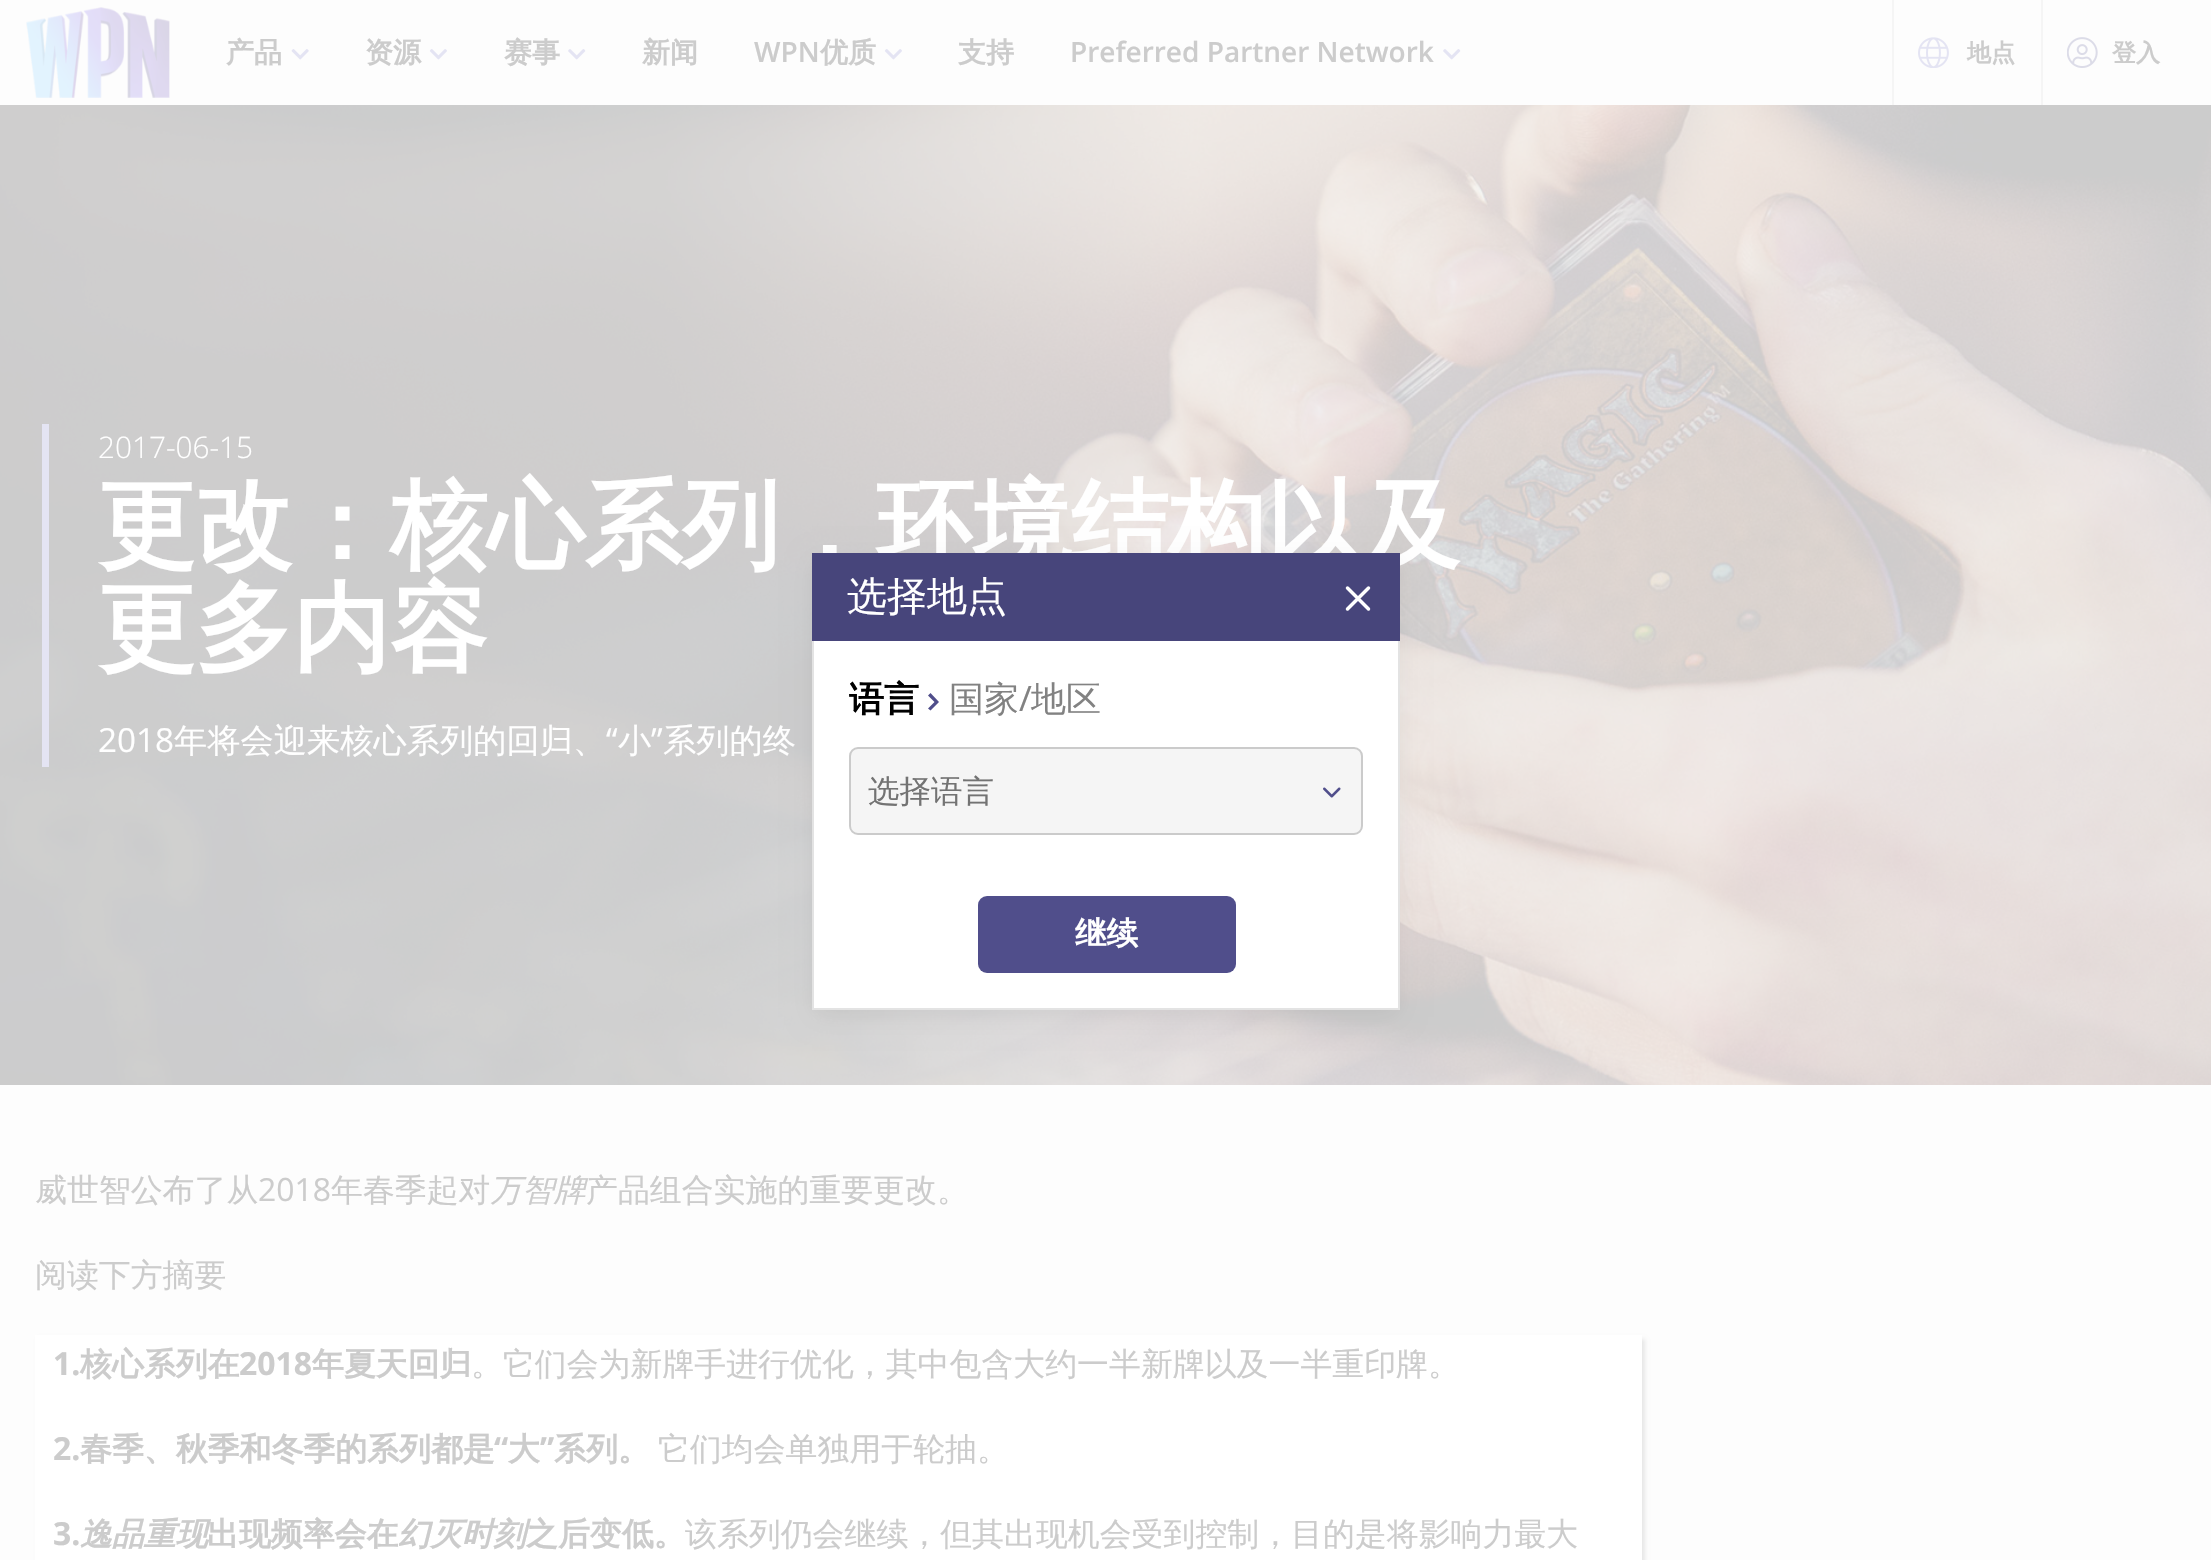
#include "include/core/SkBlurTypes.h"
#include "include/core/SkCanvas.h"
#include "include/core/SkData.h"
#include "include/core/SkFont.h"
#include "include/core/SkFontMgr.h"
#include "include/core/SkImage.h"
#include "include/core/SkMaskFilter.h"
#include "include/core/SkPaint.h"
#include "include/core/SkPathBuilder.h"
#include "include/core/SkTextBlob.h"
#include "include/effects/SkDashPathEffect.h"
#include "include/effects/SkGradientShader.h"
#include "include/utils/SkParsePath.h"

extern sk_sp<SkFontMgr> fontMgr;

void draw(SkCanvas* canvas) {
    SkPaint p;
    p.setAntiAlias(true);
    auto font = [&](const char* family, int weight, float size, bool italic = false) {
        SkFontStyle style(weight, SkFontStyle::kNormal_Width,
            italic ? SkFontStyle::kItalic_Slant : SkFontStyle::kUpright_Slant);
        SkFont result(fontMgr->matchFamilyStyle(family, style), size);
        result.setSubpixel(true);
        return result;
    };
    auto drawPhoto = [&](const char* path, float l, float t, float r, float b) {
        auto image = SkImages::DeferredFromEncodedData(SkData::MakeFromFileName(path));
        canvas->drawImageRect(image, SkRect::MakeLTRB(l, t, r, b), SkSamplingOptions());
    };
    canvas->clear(0xFFFDFDFD);
    drawPhoto("media/1.png", 26, 7, 170, 98);
    auto font1 = font("WenQuanYi Zen Hei", 700, 28);
    p.setColor(0xFFCCCCCC);
    canvas->drawString("产品", 226, 62, font1, p);
    drawPhoto("media/2.png", 291, 49, 309, 60);
    canvas->drawString("资源", 365, 62, font1, p);
    drawPhoto("media/3.png", 429, 49, 447, 60);
    canvas->drawString("赛事", 504, 62, font1, p);
    drawPhoto("media/4.png", 568, 49, 586, 60);
    canvas->drawString("新闻", 642, 62, font1, p);
    auto font2 = font("Open Sans", 600, 28);
    canvas->drawString("WPN", 754, 62, font2, p);
    canvas->drawString("优质", 820, 62, font1, p);
    drawPhoto("media/3.png", 884, 49, 902, 60);
    canvas->drawString("支持", 958, 62, font1, p);
    canvas->drawString("Preferred Partner Network", 1070, 62, font2, p);
    drawPhoto("media/4.png", 1443, 49, 1461, 60);
    p.setColor(0xFFF5F5F5);
    canvas->drawRect(SkRect::MakeLTRB(2041, 0, 2043, 105), p);
    canvas->drawRect(SkRect::MakeLTRB(1892, 0, 1894, 105), p);
    drawPhoto("media/5.png", 1918, 37, 1949, 68);
    auto font3 = font("WenQuanYi Zen Hei", 700, 24);
    p.setColor(0xFFCCCCCC);
    canvas->drawString("地点", 1967, 61, font3, p);
    drawPhoto("media/6.png", 2067, 37, 2098, 68);
    canvas->drawString("登入", 2112, 61, font3, p);
    drawPhoto("media/7.png", 0, 105, 2211, 1085);
    p.setColor(0xFFE4E4F3);
    canvas->drawRect(SkRect::MakeLTRB(42, 424, 49, 767), p);
    auto font4 = font("Open Sans", 300, 29.75f);
    p.setColor(0xFFFFFFFF);
    canvas->drawString("2017-06-15", 98, 458, font4, p);
    auto font5 = font("WenQuanYi Zen Hei", 700, 97.3f);
    canvas->drawString("更改：核心系列，环境结构以及", 98, 559, font5, p);
    canvas->drawString("更多内容", 98, 662, font5, p);
    auto font6 = font("Open Sans", 400, 33.25f);
    canvas->drawString("2018", 98, 752, font6, p);
    auto font7 = font("WenQuanYi Zen Hei", 500, 33.25f);
    canvas->drawString("年将会迎来核心系列的回归、", 174, 752, font7, p);
    canvas->drawString("“", 606, 752, font6, p);
    canvas->drawString("小", 618, 752, font7, p);
    canvas->drawString("”", 651, 752, font6, p);
    canvas->drawString("系列的终", 663, 752, font7, p);
    auto font8 = font("WenQuanYi Zen Hei", 500, 31.9f);
    p.setColor(0xFFCCCCCC);
    canvas->drawString("威世智公布了从", 35, 1201, font8, p);
    auto font9 = font("Open Sans", 400, 31.9f);
    canvas->drawString("2018", 258, 1201, font9, p);
    canvas->drawString("年春季起对", 331, 1201, font8, p);
    auto font10 = font("WenQuanYi Zen Hei", 500, 31.9f, true);
    canvas->drawString("万智牌", 490, 1201, font10, p);
    canvas->drawString("产品组合实施的重要更改。", 586, 1201, font8, p);
    canvas->drawString("阅读下方摘要", 35, 1286, font8, p);
    p.setColor(0xFFE7E7E7);
    p.setMaskFilter(SkMaskFilter::MakeBlur(kNormal_SkBlurStyle, 2));
    canvas->drawRect(SkRect::MakeLTRB(39, 1339, 1645, 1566), p);
    p.setMaskFilter(nullptr);
    p.setColor(0xFFFFFFFF);
    canvas->drawRect(SkRect::MakeLTRB(35, 1335, 1642, 1560), p);
    auto font11 = font("Open Sans", 700, 31.9f);
    p.setColor(0xFFCCCCCC);
    canvas->drawString("1.", 53, 1375, font11, p);
    auto font12 = font("WenQuanYi Zen Hei", 700, 31.9f);
    canvas->drawString("核心系列在", 80, 1375, font12, p);
    canvas->drawString("2018", 239, 1375, font11, p);
    canvas->drawString("年夏天回归", 312, 1375, font12, p);
    canvas->drawString("。它们会为新牌手进行优化，其中包含大约一半新牌以及一半重印牌。", 471, 1375, font8, p);
    canvas->drawString("2.", 53, 1460, font11, p);
    canvas->drawString("春季、秋季和冬季的系列都是", 80, 1460, font12, p);
    canvas->drawString("“", 494, 1460, font11, p);
    canvas->drawString("大", 508, 1460, font12, p);
    canvas->drawString("”", 540, 1460, font11, p);
    canvas->drawString("系列。", 554, 1460, font12, p);
    canvas->drawString("它们均会单独用于轮抽。", 658, 1460, font8, p);
    canvas->drawString("3.", 53, 1545, font11, p);
    auto font13 = font("WenQuanYi Zen Hei", 700, 31.9f, true);
    canvas->drawString("逸品重现", 80, 1545, font13, p);
    canvas->drawString("出现频率会在", 207, 1545, font12, p);
    canvas->drawString("幻灭时刻", 398, 1545, font13, p);
    canvas->drawString("之后变低。", 526, 1545, font12, p);
    canvas->drawString("该系列仍会继续，但其出现机会受到控制，目的是将影响力最大", 685, 1545, font8, p);
    p.setColor(0x0F000000);
    p.setMaskFilter(SkMaskFilter::MakeBlur(kNormal_SkBlurStyle, 11.5f));
    canvas->drawRect(SkRect::MakeLTRB(812, 560, 1400, 1017), p);
    p.setMaskFilter(nullptr);
    p.setColor(0xFFFFFFFF);
    canvas->drawRect(SkRect::MakeLTRB(814, 641, 1398, 1008), p);
    p.setColor(0xFF47457B);
    canvas->drawRect(SkRect::MakeLTRB(812, 553, 1400, 641), p);
    auto font14 = font("WenQuanYi Zen Hei", 500, 40);
    p.setColor(0xFFFFFFFF);
    canvas->drawString("选择地点", 847, 610, font14, p);
    p.setStyle(SkPaint::kStroke_Style);
    p.setStrokeWidth(3.5f);
    p.setStrokeCap(SkPaint::kRound_Cap);
    p.setStrokeJoin(SkPaint::kRound_Join);
    canvas->drawPath(SkPathBuilder().moveTo(1368.5f, 588).lineTo(1347.5f, 609).moveTo(1347.5f, 588).lineTo(1368.5f, 609).detach(), p);
    p.setStyle(SkPaint::kFill_Style);
    {
        const struct { float l, t, r, b; SkColor color; } items[] = {
            {1398, 641, 1400, 1010, 0xFFE3E3E3},
            {812, 1008, 1400, 1010, 0xFFE3E3E3},
            {812, 641, 814, 1010, 0xFFE3E3E3},
        };
        for (auto [l, t, r, b, color] : items) {
            p.setColor(color);
            canvas->drawRect(SkRect::MakeLTRB(l, t, r, b), p);
        }
    }
    auto font15 = font("WenQuanYi Zen Hei", 700, 35);
    p.setColor(0xFF000000);
    canvas->drawString("语言", 849, 711, font15, p);
    p.setColor(0xFF504E8B);
    canvas->drawPath(SkPathBuilder().moveTo(930.5f, 710.5f).lineTo(939, 702).lineTo(930.5f, 693).lineTo(928, 695.5f).lineTo(934.5f, 702).lineTo(928, 708.5f).close().detach(), p);
    auto font16 = font("WenQuanYi Zen Hei", 500, 35);
    p.setColor(0xFF828282);
    canvas->drawString("国家", 949, 711, font16, p);
    auto font17 = font("Open Sans", 400, 35);
    canvas->drawString("/", 1019, 711, font17, p);
    canvas->drawString("地区", 1031, 711, font16, p);
    p.setColor(0xFFF5F5F5);
    canvas->drawRoundRect(SkRect::MakeLTRB(850, 748, 1362, 834), 8, 8, p);
    p.setStyle(SkPaint::kStroke_Style);
    p.setStrokeWidth(2);
    p.setStrokeCap(SkPaint::kButt_Cap);
    p.setStrokeJoin(SkPaint::kMiter_Join);
    p.setColor(0xFFCBCBCB);
    canvas->drawRoundRect(SkRect::MakeLTRB(850, 748, 1362, 834), 8, 8, p);
    auto font18 = font("WenQuanYi Zen Hei", 500, 31.5f);
    p.setStyle(SkPaint::kFill_Style);
    p.setColor(0xFF737373);
    canvas->drawString("选择语言", 868, 802, font18, p);
    drawPhoto("media/8.png", 1323, 787, 1341, 798);
    p.setColor(0xFF504E8B);
    canvas->drawRoundRect(SkRect::MakeLTRB(978, 896, 1236, 973), 9, 9, p);
    auto font19 = font("WenQuanYi Zen Hei", 700, 31.5f);
    p.setColor(0xFFFFFFFF);
    canvas->drawString("继续", 1075, 944, font19, p);
}
